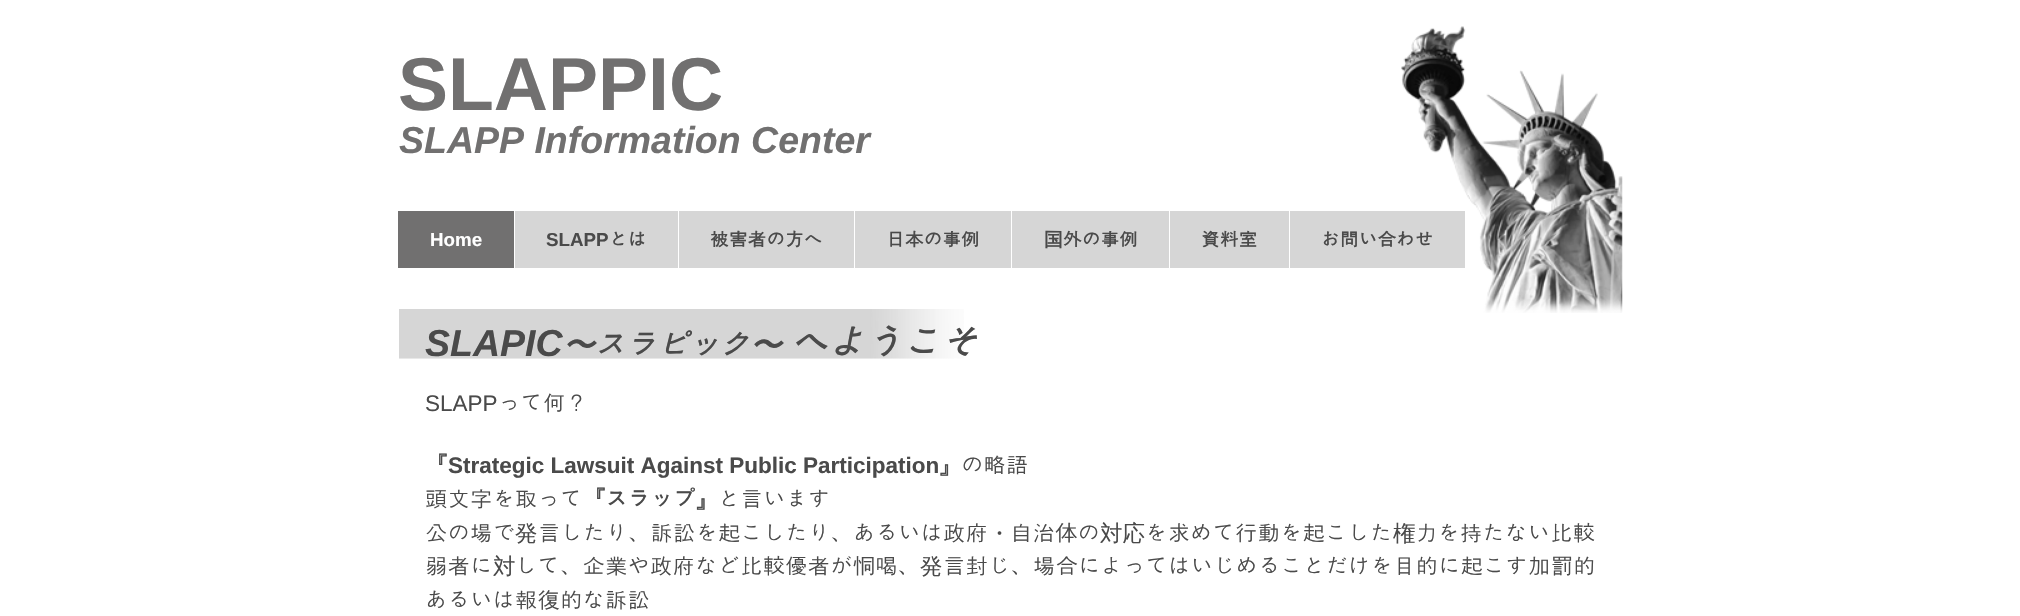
#include "include/core/SkBlurTypes.h"
#include "include/core/SkCanvas.h"
#include "include/core/SkData.h"
#include "include/core/SkFont.h"
#include "include/core/SkFontMgr.h"
#include "include/core/SkImage.h"
#include "include/core/SkMaskFilter.h"
#include "include/core/SkPaint.h"
#include "include/core/SkPathBuilder.h"
#include "include/core/SkTextBlob.h"
#include "include/effects/SkDashPathEffect.h"
#include "include/effects/SkGradientShader.h"
#include "include/utils/SkParsePath.h"

extern sk_sp<SkFontMgr> fontMgr;

void draw(SkCanvas* canvas) {
    SkPaint p;
    p.setAntiAlias(true);
    auto font = [&](const char* family, int weight, float size, bool italic = false) {
        SkFontStyle style(weight, SkFontStyle::kNormal_Width,
            italic ? SkFontStyle::kItalic_Slant : SkFontStyle::kUpright_Slant);
        SkFont result(fontMgr->matchFamilyStyle(family, style), size);
        result.setSubpixel(true);
        return result;
    };
    auto drawPhoto = [&](const char* path, float l, float t, float r, float b) {
        auto image = SkImages::DeferredFromEncodedData(SkData::MakeFromFileName(path));
        canvas->drawImageRect(image, SkRect::MakeLTRB(l, t, r, b), SkSamplingOptions());
    };
    canvas->clear(0xFFFFFFFF);
    auto font1 = font("Liberation Sans", 700, 75);
    p.setColor(0xFF717070);
    canvas->drawString("SLAPPIC", 398, 110, font1, p);
    p.setColor(0xFFD6D6D6);
    canvas->drawRect(SkRect::MakeLTRB(515, 211, 1465, 268), p);
    auto font2 = font("Dotum", 700, 18.75f);
    p.setColor(0xFF4A4A4A);
    canvas->drawString("お問い合わせ", 1321, 246, font2, p);
    drawPhoto("media/1.png", 1401, 26, 1623, 313);
    auto font3 = font("Liberation Sans", 700, 37.5f, true);
    p.setColor(0xFF717070);
    canvas->drawString("SLAPP Information Center", 399, 153, font3, p);
    canvas->drawRect(SkRect::MakeLTRB(398, 211, 514, 268), p);
    auto font4 = font("Liberation Sans", 700, 18.75f);
    p.setColor(0xFFFFFFFF);
    canvas->drawString("Home", 430, 246, font4, p);
    p.setColor(0xFF4A4A4A);
    canvas->drawString("SLAPP", 546, 246, font4, p);
    canvas->drawString("とは", 609, 246, font2, p);
    p.setColor(0xFFFFFFFF);
    canvas->drawRect(SkRect::MakeLTRB(678, 211, 679, 268), p);
    p.setColor(0xFF4A4A4A);
    canvas->drawString("被害者の方へ", 710, 246, font2, p);
    p.setColor(0xFFFFFFFF);
    canvas->drawRect(SkRect::MakeLTRB(854, 211, 855, 268), p);
    p.setColor(0xFF4A4A4A);
    canvas->drawString("日本の事例", 886, 246, font2, p);
    p.setColor(0xFFFFFFFF);
    canvas->drawRect(SkRect::MakeLTRB(1011, 211, 1012, 268), p);
    auto font5 = font("WenQuanYi Zen Hei", 700, 18.75f);
    p.setColor(0xFF4A4A4A);
    canvas->drawString("国", 1044, 246, font5, p);
    canvas->drawString("外の事例", 1063, 246, font2, p);
    p.setColor(0xFFFFFFFF);
    canvas->drawRect(SkRect::MakeLTRB(1169, 211, 1170, 268), p);
    p.setColor(0xFF4A4A4A);
    canvas->drawString("資料室", 1201, 246, font2, p);
    p.setColor(0xFFFFFFFF);
    canvas->drawRect(SkRect::MakeLTRB(1289, 211, 1290, 268), p);
    drawPhoto("media/2.png", 399, 309, 964, 359);
    p.setColor(0xFF4A4A4A);
    canvas->drawString("SLAPIC", 425, 356, font3, p);
    auto font6 = font("WenQuanYi Zen Hei", 700, 31.25f, true);
    canvas->drawString("〜", 563, 356, font6, p);
    auto font7 = font("Dotum", 700, 31.25f, true);
    canvas->drawString("スラピック", 594, 356, font7, p);
    canvas->drawString("〜", 750, 356, font6, p);
    auto font8 = font("Dotum", 700, 37.5f, true);
    canvas->drawString("へようこそ", 790, 356, font8, p);
    auto font9 = font("Liberation Sans", 400, 22.5f);
    canvas->drawString("SLAPP", 425, 411, font9, p);
    auto font10 = font("Dotum", 400, 22.5f);
    canvas->drawString("って何？", 498, 411, font10, p);
    auto font11 = font("Dotum", 700, 22.5f);
    canvas->drawString("『", 425, 473, font11, p);
    auto font12 = font("Liberation Sans", 700, 22.5f);
    canvas->drawString("Strategic Lawsuit Against Public Participation", 448, 473, font12, p);
    canvas->drawString("』", 939, 473, font11, p);
    canvas->drawString("の略語", 961, 473, font10, p);
    canvas->drawString("頭文字を取って", 425, 507, font10, p);
    canvas->drawString("『スラップ』", 583, 507, font11, p);
    canvas->drawString("と言います", 718, 507, font10, p);
    canvas->drawString("公の場で", 425, 541, font10, p);
    auto font13 = font("WenQuanYi Zen Hei", 500, 22.5f);
    canvas->drawString("発", 515, 541, font13, p);
    canvas->drawString("言したり、訴訟を起こしたり、あるいは政府", 538, 541, font10, p);
    canvas->drawString("・", 988, 541, font13, p);
    canvas->drawString("自治体の", 1010, 541, font10, p);
    canvas->drawString("対応", 1100, 541, font13, p);
    canvas->drawString("を求めて行動を起こした", 1145, 541, font10, p);
    canvas->drawString("権", 1393, 541, font13, p);
    canvas->drawString("力を持たない比較", 1415, 541, font10, p);
    canvas->drawString("弱者に", 425, 574, font10, p);
    canvas->drawString("対", 493, 574, font13, p);
    canvas->drawString("して、企業や政府など比較優者が恫喝、", 515, 574, font10, p);
    canvas->drawString("発", 920, 574, font13, p);
    canvas->drawString("言封じ、場合によってはいじめることだけを目的に起こす加罰的", 943, 574, font10, p);
    canvas->drawString("あるいは報復的な訴訟", 425, 608, font10, p);
}
